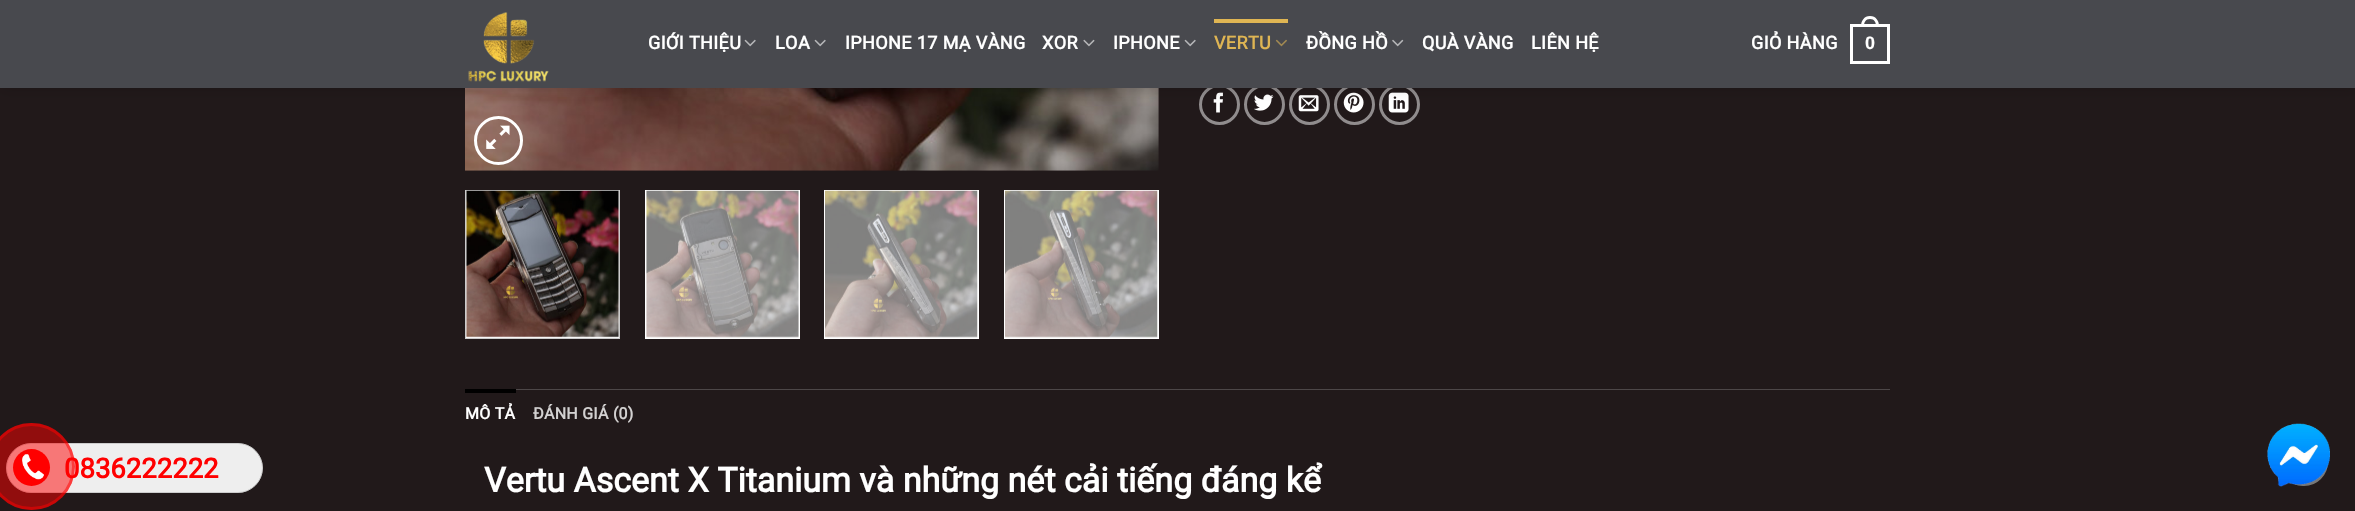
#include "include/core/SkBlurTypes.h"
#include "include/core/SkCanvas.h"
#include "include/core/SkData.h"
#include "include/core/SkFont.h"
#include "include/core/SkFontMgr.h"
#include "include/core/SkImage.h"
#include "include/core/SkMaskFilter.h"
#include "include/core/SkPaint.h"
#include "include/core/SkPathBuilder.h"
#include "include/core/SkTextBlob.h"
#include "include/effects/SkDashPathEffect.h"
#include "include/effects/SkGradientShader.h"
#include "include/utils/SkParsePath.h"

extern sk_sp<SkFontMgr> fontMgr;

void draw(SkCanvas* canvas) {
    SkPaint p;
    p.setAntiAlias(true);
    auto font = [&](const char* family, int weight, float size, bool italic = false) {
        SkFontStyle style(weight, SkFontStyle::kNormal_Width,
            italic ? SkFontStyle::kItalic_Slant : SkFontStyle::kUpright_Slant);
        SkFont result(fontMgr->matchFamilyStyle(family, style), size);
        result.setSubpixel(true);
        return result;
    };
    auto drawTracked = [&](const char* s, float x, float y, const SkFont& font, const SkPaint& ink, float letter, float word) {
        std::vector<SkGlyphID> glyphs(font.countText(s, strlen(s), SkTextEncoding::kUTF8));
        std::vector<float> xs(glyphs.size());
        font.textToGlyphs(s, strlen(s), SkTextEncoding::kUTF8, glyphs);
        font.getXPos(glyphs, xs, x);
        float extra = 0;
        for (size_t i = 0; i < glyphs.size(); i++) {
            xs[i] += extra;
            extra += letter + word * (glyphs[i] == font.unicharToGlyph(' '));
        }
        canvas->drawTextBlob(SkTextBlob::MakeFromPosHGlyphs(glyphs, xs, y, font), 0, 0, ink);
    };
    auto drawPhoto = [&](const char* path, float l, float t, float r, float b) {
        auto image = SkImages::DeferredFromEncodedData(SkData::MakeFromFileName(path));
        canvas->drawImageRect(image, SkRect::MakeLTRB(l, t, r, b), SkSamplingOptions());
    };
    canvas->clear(0xFF21191A);
    p.setColor(0xFFEEEEEE);
    canvas->drawRoundRect(SkRect::MakeLTRB(6.5f, 443.5f, 262.5f, 492.5f), 24.5f, 24.5f, p);
    p.setStyle(SkPaint::kStroke_Style);
    p.setStrokeWidth(1);
    p.setColor(0xFFCCCCCC);
    canvas->drawRoundRect(SkRect::MakeLTRB(6.5f, 443.5f, 262.5f, 492.5f), 24.5f, 24.5f, p);
    auto font1 = font("Roboto", 700, 27.5f);
    p.setStyle(SkPaint::kFill_Style);
    p.setColor(0xFFFF0000);
    canvas->drawString("0836222222", 64, 478, font1, p);
    p.setColor(0x80FF0000);
    canvas->drawCircle(31.5f, 466.5f, 43.5f, p);
    p.setStyle(SkPaint::kStroke_Style);
    p.setStrokeWidth(3);
    canvas->drawCircle(31.5f, 466.5f, 42, p);
    p.setStyle(SkPaint::kFill_Style);
    p.setColor(0xFFFF0000);
    canvas->drawCircle(31.5f, 467.5f, 18.5f, p);
    drawPhoto("media/1.png", 22, 454, 44, 480);
    drawPhoto("media/7.png", 465, 88, 1159, 171);
    p.setStyle(SkPaint::kStroke_Style);
    p.setColor(0xFF908C8D);
    canvas->drawCircle(1219.5f, 104.5f, 19, p);
    drawPhoto("media/13.png", 1213, 92, 1223, 113);
    canvas->drawCircle(1264.5f, 104.5f, 19, p);
    drawPhoto("media/14.png", 1254, 94, 1274, 111);
    canvas->drawCircle(1309.5f, 104.5f, 19, p);
    drawPhoto("media/15.png", 1298, 95, 1319, 112);
    canvas->drawCircle(1354.5f, 104.5f, 19, p);
    drawPhoto("media/16.png", 1343, 92, 1364, 113);
    canvas->drawCircle(1399.5f, 104.5f, 19, p);
    drawPhoto("media/17.png", 1388, 92, 1409, 113);
    p.setStyle(SkPaint::kFill_Style);
    p.setColor(0x26000000);
    p.setMaskFilter(SkMaskFilter::MakeBlur(kNormal_SkBlurStyle, 6));
    canvas->drawRect(SkRect::MakeLTRB(1, 1, 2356, 89), p);
    p.setMaskFilter(nullptr);
    p.setColor(0xFF48494E);
    canvas->drawRect(SkRect::MakeLTRB(0, 0, 2355, 88), p);
    drawPhoto("media/2.png", 468, 12, 549, 82);
    auto font2 = font("Roboto", 700, 18);
    p.setColor(0xFFFFFFFF);
    drawTracked("GIỚI THIỆU", 648, 49, font2, p, 0.4f, 0);
    drawPhoto("media/3.png", 744, 39, 756, 47);
    drawTracked("LOA", 775, 49, font2, p, 0.4f, 0);
    drawPhoto("media/3.png", 814, 39, 826, 47);
    drawTracked("IPHONE 17 MẠ VÀNG", 845, 49, font2, p, 0.4f, 0);
    drawTracked("XOR", 1042, 49, font2, p, 0.4f, 0);
    drawPhoto("media/4.png", 1083, 39, 1095, 47);
    drawTracked("IPHONE", 1113, 49, font2, p, 0.4f, 0);
    drawPhoto("media/3.png", 1184, 39, 1196, 47);
    p.setColor(0xFFDFB553);
    canvas->drawRect(SkRect::MakeLTRB(1214, 19, 1288, 23), p);
    drawTracked("VERTU", 1214, 49, font2, p, 0.4f, 0);
    drawPhoto("media/5.png", 1275, 39, 1287, 47);
    p.setColor(0xFFFFFFFF);
    drawTracked("ĐỒNG HỒ", 1306, 49, font2, p, 0.4f, 0);
    drawPhoto("media/6.png", 1392, 39, 1404, 47);
    {
        const struct { const char* s; float x, y; } items[] = {
            {"QUÀ VÀNG", 1422, 49},
            {"LIÊN HỆ", 1531, 49},
            {"GIỎ HÀNG", 1751, 49},
        };
        for (auto [s, x, y] : items) {
            drawTracked(s, x, y, font2, p, 0.4f, 0);
        }
    }
    p.setStyle(SkPaint::kStroke_Style);
    canvas->drawRect(SkRect::MakeLTRB(1851.5f, 25.5f, 1888.5f, 62.5f), p);
    p.setStyle(SkPaint::kFill_Style);
    canvas->drawPath(SkPathBuilder(SkPathFillType::kEvenOdd).moveTo(1870, 16).cubicTo(1876, 16, 1879, 21, 1879, 26).lineTo(1861, 26).cubicTo(1861, 21, 1864, 16, 1870, 16).close().moveTo(1870, 19).cubicTo(1874.5f, 19, 1876, 22.5f, 1876, 26).lineTo(1864, 26).cubicTo(1864, 22.5f, 1865.5f, 19, 1870, 19).close().detach(), p);
    auto font3 = font("Liberation Sans", 700, 18);
    drawTracked("0", 1865, 49, font3, p, 0.4f, 0);
    p.setStyle(SkPaint::kStroke_Style);
    canvas->drawCircle(498.5f, 140.5f, 23, p);
    drawPhoto("media/8.png", 486, 125, 510, 149);
    p.setStyle(SkPaint::kFill_Style);
    canvas->drawRect(SkRect::MakeLTRB(465.5f, 190.5f, 619.5f, 338.5f), p);
    p.setStyle(SkPaint::kStroke_Style);
    p.setStrokeWidth(1);
    p.setColor(0xFFCCCCCC);
    canvas->drawRect(SkRect::MakeLTRB(465.5f, 190.5f, 619.5f, 338.5f), p);
    drawPhoto("media/9.png", 466, 190, 619, 338);
    p.setStyle(SkPaint::kFill_Style);
    p.setColor(0xFFFFFFFF);
    canvas->drawRect(SkRect::MakeLTRB(645, 190, 800, 339), p);
    drawPhoto("media/10.png", 646, 190, 799, 338);
    canvas->drawRect(SkRect::MakeLTRB(824, 190, 979, 339), p);
    drawPhoto("media/11.png", 825, 190, 978, 338);
    canvas->drawRect(SkRect::MakeLTRB(1004, 190, 1159, 339), p);
    drawPhoto("media/12.png", 1005, 190, 1158, 338);
    p.setColor(0xFF4D4748);
    canvas->drawRect(SkRect::MakeLTRB(516, 389, 1890, 390), p);
    p.setColor(0xFF000000);
    canvas->drawRect(SkRect::MakeLTRB(465, 389, 516, 393), p);
    auto font4 = font("Roboto", 700, 16);
    p.setColor(0xFFFFFFFF);
    drawTracked("MÔ TẢ", 465, 419, font4, p, 0.25f, 0);
    p.setColor(0xFFD3D1D1);
    drawTracked("ĐÁNH GIÁ (0)", 533, 419, font4, p, 0.25f, 0);
    auto font5 = font("Roboto", 700, 34);
    p.setColor(0xFFFFFFFF);
    canvas->drawString("Vertu Ascent X Titanium và những nét cải tiếng đáng kể", 484, 492, font5, p);
    p.setStyle(SkPaint::kStroke_Style);
    p.setStrokeWidth(3);
    p.setColor(0xFF777777);
    canvas->drawRoundRect(SkRect::MakeLTRB(2280.5f, 439.5f, 2326.5f, 484.5f), 22.5f, 22.5f, p);
    drawPhoto("media/18.png", 2267, 423, 2330, 487);
}
